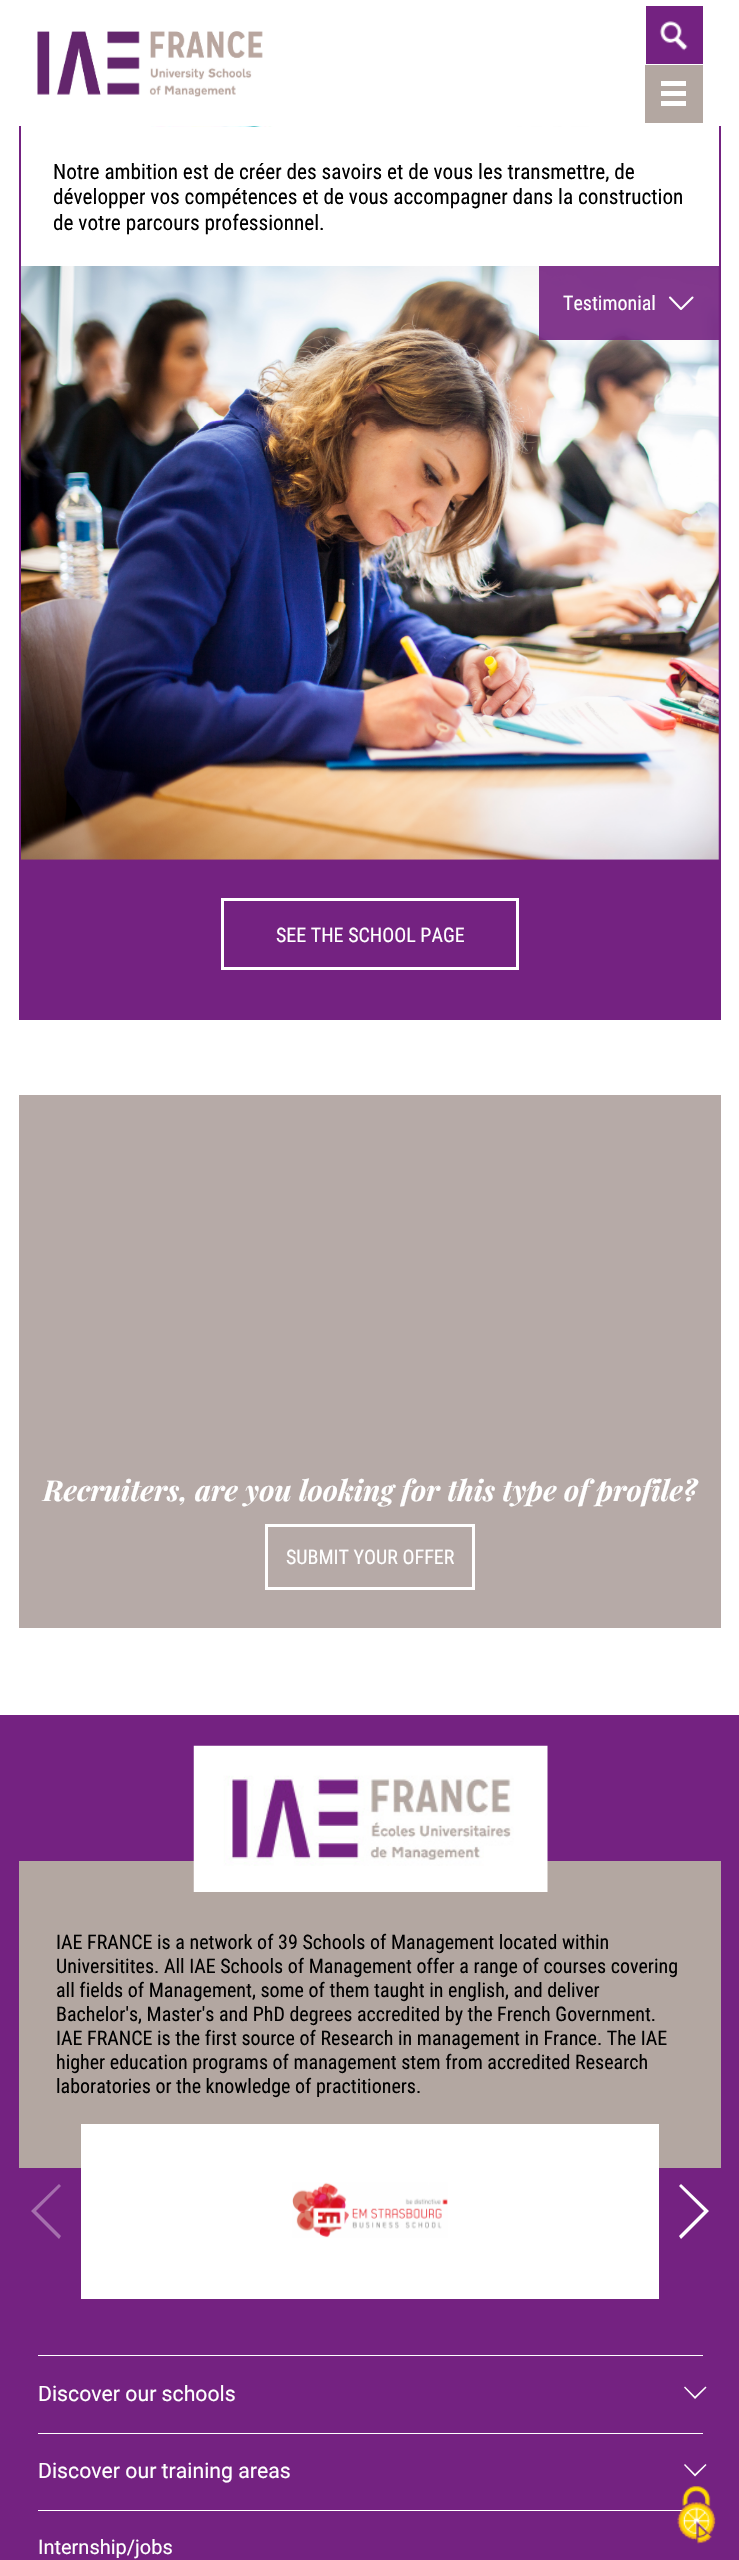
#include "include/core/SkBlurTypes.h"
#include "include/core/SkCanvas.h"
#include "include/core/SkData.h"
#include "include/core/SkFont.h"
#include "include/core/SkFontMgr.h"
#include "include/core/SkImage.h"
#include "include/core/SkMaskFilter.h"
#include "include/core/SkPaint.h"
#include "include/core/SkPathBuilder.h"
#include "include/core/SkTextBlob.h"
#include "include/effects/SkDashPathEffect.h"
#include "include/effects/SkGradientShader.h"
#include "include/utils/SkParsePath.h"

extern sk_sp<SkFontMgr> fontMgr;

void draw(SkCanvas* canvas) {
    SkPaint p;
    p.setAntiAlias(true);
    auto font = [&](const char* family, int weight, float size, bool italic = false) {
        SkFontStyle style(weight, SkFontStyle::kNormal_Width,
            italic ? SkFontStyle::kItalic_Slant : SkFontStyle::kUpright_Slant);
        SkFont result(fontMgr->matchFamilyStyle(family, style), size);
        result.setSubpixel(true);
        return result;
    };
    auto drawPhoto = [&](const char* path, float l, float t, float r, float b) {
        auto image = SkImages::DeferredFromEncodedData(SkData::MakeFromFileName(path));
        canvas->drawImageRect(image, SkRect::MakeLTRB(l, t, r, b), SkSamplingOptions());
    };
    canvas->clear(0xFFFFFFFF);
    drawPhoto("media/1.png", 37, 31, 263, 97);
    p.setColor(0xFF742281);
    canvas->drawRect(SkRect::MakeLTRB(646, 6, 703, 64), p);
    drawPhoto("media/2.png", 659, 21, 688, 51);
    {
        const struct { float l, t, r, b; SkColor color; } items[] = {
            {645, 65, 703, 123, 0xFFB3A7A1},
            {661, 91, 686, 96, 0xFFFFFFFF},
            {661, 81, 686, 86, 0xFFFFFFFF},
            {661, 101, 686, 106, 0xFFFFFFFF},
            {19, 126, 721, 1020, 0xFF742281},
            {21, 126, 719, 266, 0xFFFFFFFF},
        };
        for (auto [l, t, r, b, color] : items) {
            p.setColor(color);
            canvas->drawRect(SkRect::MakeLTRB(l, t, r, b), p);
        }
    }
    drawPhoto("media/3.png", 151, 126, 589, 127);
    auto font1 = font("Roboto Condensed", 400, 21.25f);
    p.setColor(0xFF000000);
    {
        const struct { const char* s; float x, y; } items[] = {
            {"Notre ambition est de créer des savoirs et de vous les transmettre, de", 53, 179},
            {"développer vos compétences et de vous accompagner dans la construction", 53, 204},
            {"de votre parcours professionnel.", 53, 230},
        };
        for (auto [s, x, y] : items) {
            canvas->drawString(s, x, y, font1, p);
        }
    }
    drawPhoto("media/4.png", 21, 266, 719, 860);
    p.setColor(0xE6742281);
    canvas->drawRect(SkRect::MakeLTRB(539, 266, 719, 340), p);
    auto font2 = font("Roboto Condensed", 400, 20);
    p.setColor(0xFFFFFFFF);
    canvas->drawString("Testimonial", 563, 310, font2, p);
    p.setStyle(SkPaint::kStroke_Style);
    p.setStrokeWidth(2.1f);
    p.setStrokeCap(SkPaint::kRound_Cap);
    p.setStrokeJoin(SkPaint::kRound_Join);
    canvas->drawPath(SkPathBuilder().moveTo(692.5f, 297.5f).lineTo(681, 309).lineTo(670, 297.5f).detach(), p);
    p.setStrokeWidth(3);
    p.setStrokeCap(SkPaint::kButt_Cap);
    p.setStrokeJoin(SkPaint::kMiter_Join);
    canvas->drawRect(SkRect::MakeLTRB(222.5f, 899.5f, 517.5f, 968.5f), p);
    p.setStyle(SkPaint::kFill_Style);
    canvas->drawString("SEE THE SCHOOL PAGE", 276, 942, font2, p);
    p.setColor(0xFFB6AAA7);
    canvas->drawRect(SkRect::MakeLTRB(19, 1095, 721, 1628), p);
    auto font3 = font("Playfair Display", 700, 28.75f, true);
    p.setColor(0xFFFFFFFF);
    canvas->drawString("Recruiters, are you looking for this type of profile?", 43, 1501, font3, p);
    p.setStyle(SkPaint::kStroke_Style);
    canvas->drawRect(SkRect::MakeLTRB(266.5f, 1525.5f, 473.5f, 1588.5f), p);
    p.setStyle(SkPaint::kFill_Style);
    canvas->drawString("SUBMIT YOUR OFFER", 286, 1564, font2, p);
    p.setColor(0xFF742281);
    canvas->drawRect(SkRect::MakeLTRB(0, 1715, 739, 2560), p);
    p.setColor(0xFFB3A7A1);
    canvas->drawRect(SkRect::MakeLTRB(19, 1861, 721, 2168), p);
    drawPhoto("media/5.png", 193, 1745, 548, 1892);
    p.setColor(0xFF000000);
    {
        const struct { const char* s; float x, y; } items[] = {
            {"IAE FRANCE is a network of 39 Schools of Management located within", 56, 1949},
            {"Universitites. All IAE Schools of Management offer a range of courses covering", 56, 1973},
            {"all fields of Management, some of them taught in english, and deliver", 56, 1997},
            {"Bachelor's, Master's and PhD degrees accredited by the French Government.", 56, 2021},
            {"IAE FRANCE is the first source of Research in management in France. The IAE", 56, 2045},
            {"higher education programs of management stem from accredited Research", 56, 2069},
            {"laboratories or the knowledge of practitioners.", 56, 2093},
        };
        for (auto [s, x, y] : items) {
            canvas->drawString(s, x, y, font2, p);
        }
    }
    p.setColor(0xFFFFFFFF);
    canvas->drawRect(SkRect::MakeLTRB(81, 2124, 659, 2299), p);
    drawPhoto("media/6.png", 292, 2182, 448, 2238);
    p.setColor(0xFFA56FAD);
    canvas->drawPath(SkPathBuilder().moveTo(31, 2211).lineTo(59, 2184).lineTo(61, 2186).lineTo(36, 2211).lineTo(61, 2236).lineTo(59, 2239).close().detach(), p);
    p.setColor(0xFFFFFFFF);
    canvas->drawPath(SkPathBuilder().moveTo(709, 2211).lineTo(681, 2239).lineTo(679, 2236).lineTo(704, 2211).lineTo(679, 2186).lineTo(681, 2184).close().detach(), p);
    canvas->drawRect(SkRect::MakeLTRB(38, 2355, 703, 2356), p);
    auto font4 = font("Roboto", 400, 21.25f);
    canvas->drawString("Discover our schools", 38, 2401, font4, p);
    canvas->drawPath(SkPathBuilder().moveTo(695, 2399).lineTo(684, 2387.5f).lineTo(685, 2386.5f).lineTo(695, 2396.5f).lineTo(705.5f, 2386.5f).lineTo(706.5f, 2387.5f).close().detach(), p);
    canvas->drawRect(SkRect::MakeLTRB(38, 2433, 703, 2434), p);
    canvas->drawString("Discover our training areas", 38, 2478, font4, p);
    canvas->drawPath(SkPathBuilder().moveTo(695, 2476.5f).lineTo(684, 2465).lineTo(685, 2464).lineTo(695, 2474).lineTo(705.5f, 2464).lineTo(706.5f, 2465).close().detach(), p);
    canvas->drawRect(SkRect::MakeLTRB(38, 2510, 683, 2511), p);
    auto font5 = font("Roboto", 400, 20);
    canvas->drawString("Internship/jobs", 38, 2554, font5, p);
    drawPhoto("media/7.png", 677, 2486, 716, 2544);
}
